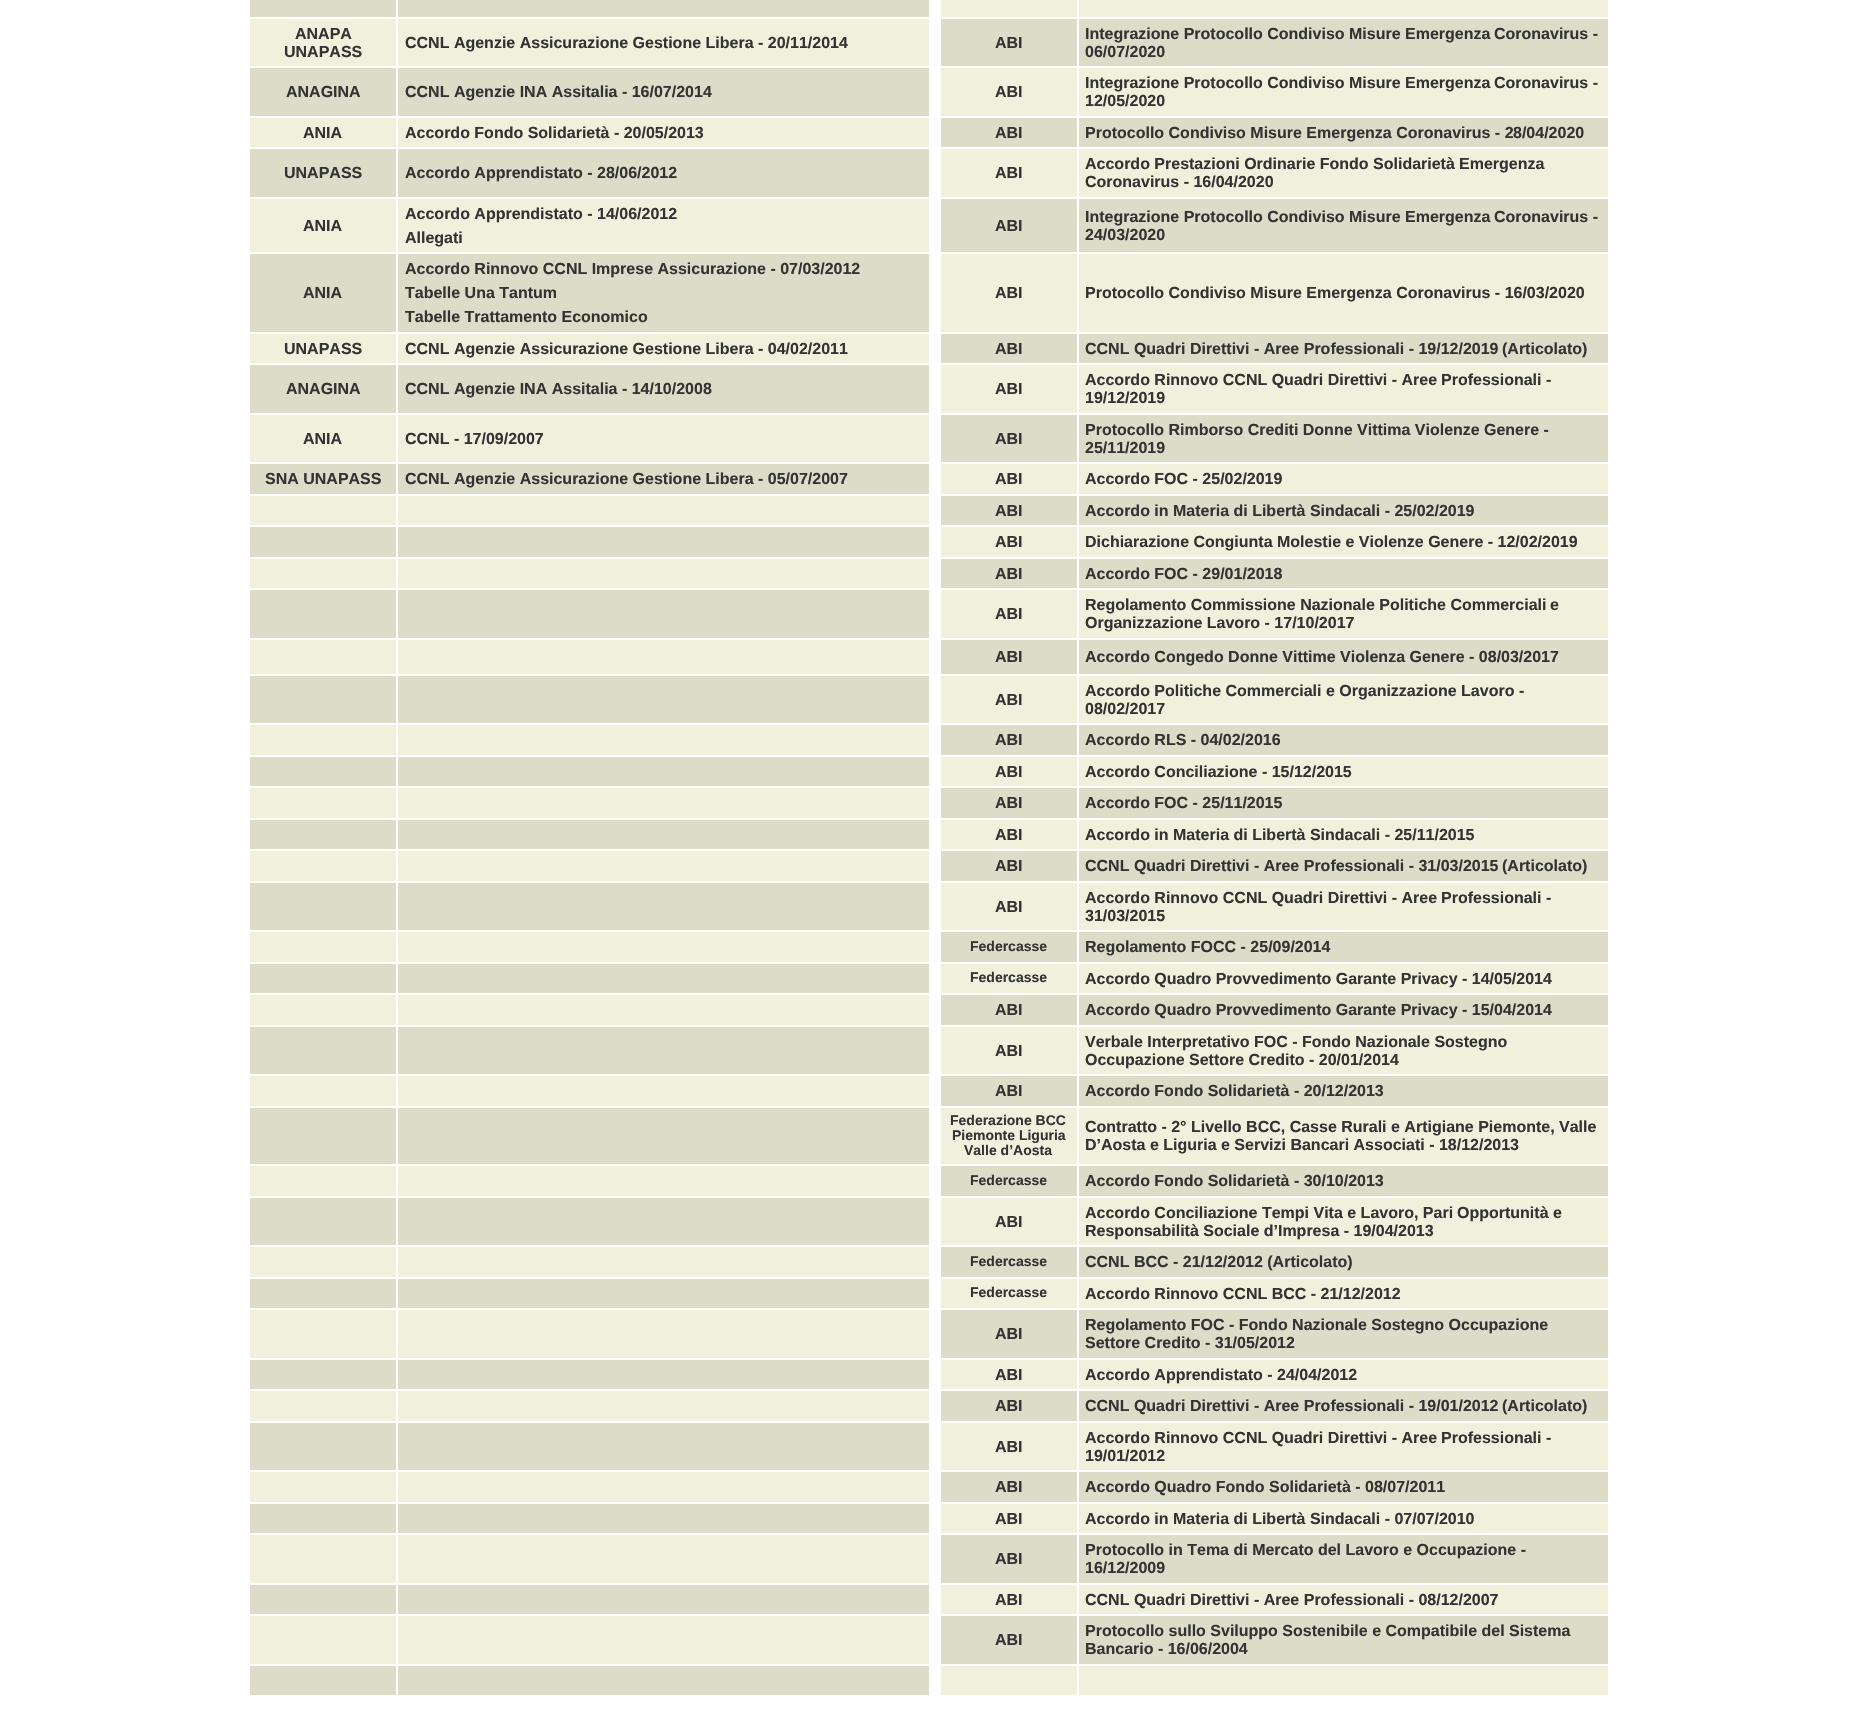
#include "include/core/SkBlurTypes.h"
#include "include/core/SkCanvas.h"
#include "include/core/SkData.h"
#include "include/core/SkFont.h"
#include "include/core/SkFontMgr.h"
#include "include/core/SkImage.h"
#include "include/core/SkMaskFilter.h"
#include "include/core/SkPaint.h"
#include "include/core/SkPathBuilder.h"
#include "include/core/SkTextBlob.h"
#include "include/effects/SkDashPathEffect.h"
#include "include/effects/SkGradientShader.h"
#include "include/utils/SkParsePath.h"

extern sk_sp<SkFontMgr> fontMgr;

void draw(SkCanvas* canvas) {
    SkPaint p;
    p.setAntiAlias(true);
    auto font = [&](const char* family, int weight, float size, bool italic = false) {
        SkFontStyle style(weight, SkFontStyle::kNormal_Width,
            italic ? SkFontStyle::kItalic_Slant : SkFontStyle::kUpright_Slant);
        SkFont result(fontMgr->matchFamilyStyle(family, style), size);
        result.setSubpixel(true);
        return result;
    };
    canvas->clear(0xFFFFFFFF);
    {
        const struct { float l, t, r, b; SkColor color; } items[] = {
            {250, 0, 396, 17, 0xFFDCDCC8},
            {398, 0, 929, 17, 0xFFDCDCC8},
            {941, 0, 1077, 17, 0xFFF0F0DC},
            {1079, 0, 1608, 17, 0xFFF0F0DC},
            {250, 19, 396, 66, 0xFFF0F0DC},
        };
        for (auto [l, t, r, b, color] : items) {
            p.setColor(color);
            canvas->drawRect(SkRect::MakeLTRB(l, t, r, b), p);
        }
    }
    auto font1 = font("Liberation Sans", 700, 16);
    p.setColor(0xFF333333);
    canvas->drawString("ANAPA", 295, 39, font1, p);
    canvas->drawString("UNAPASS", 284, 57, font1, p);
    p.setColor(0xFFF0F0DC);
    canvas->drawRect(SkRect::MakeLTRB(398, 19, 929, 66), p);
    p.setColor(0xFF333333);
    canvas->drawString("CCNL Agenzie Assicurazione Gestione Libera - 20/11/2014", 405, 48, font1, p);
    p.setColor(0xFFDCDCC8);
    canvas->drawRect(SkRect::MakeLTRB(941, 19, 1077, 66), p);
    p.setColor(0xFF333333);
    canvas->drawString("ABI", 995, 48, font1, p);
    p.setColor(0xFFDCDCC8);
    canvas->drawRect(SkRect::MakeLTRB(1079, 19, 1608, 66), p);
    p.setColor(0xFF333333);
    {
        const struct { const char* s; float x, y; } items[] = {
            {"Integrazione Protocollo Condiviso Misure Emergenza", 1085, 39},
            {"Coronavirus -", 1494, 39},
            {"06/07/2020", 1085, 57},
        };
        for (auto [s, x, y] : items) {
            canvas->drawString(s, x, y, font1, p);
        }
    }
    p.setColor(0xFFDCDCC8);
    canvas->drawRect(SkRect::MakeLTRB(250, 68, 396, 116), p);
    p.setColor(0xFF333333);
    canvas->drawString("ANAGINA", 286, 97, font1, p);
    p.setColor(0xFFDCDCC8);
    canvas->drawRect(SkRect::MakeLTRB(398, 68, 929, 116), p);
    p.setColor(0xFF333333);
    canvas->drawString("CCNL Agenzie INA Assitalia - 16/07/2014", 405, 97, font1, p);
    p.setColor(0xFFF0F0DC);
    canvas->drawRect(SkRect::MakeLTRB(941, 68, 1077, 116), p);
    p.setColor(0xFF333333);
    canvas->drawString("ABI", 995, 97, font1, p);
    p.setColor(0xFFF0F0DC);
    canvas->drawRect(SkRect::MakeLTRB(1079, 68, 1608, 116), p);
    p.setColor(0xFF333333);
    {
        const struct { const char* s; float x, y; } items[] = {
            {"Integrazione Protocollo Condiviso Misure Emergenza", 1085, 88},
            {"Coronavirus -", 1494, 88},
            {"12/05/2020", 1085, 106},
        };
        for (auto [s, x, y] : items) {
            canvas->drawString(s, x, y, font1, p);
        }
    }
    p.setColor(0xFFF0F0DC);
    canvas->drawRect(SkRect::MakeLTRB(250, 118, 396, 147), p);
    p.setColor(0xFF333333);
    canvas->drawString("ANIA", 303, 138, font1, p);
    p.setColor(0xFFF0F0DC);
    canvas->drawRect(SkRect::MakeLTRB(398, 118, 929, 147), p);
    p.setColor(0xFF333333);
    canvas->drawString("Accordo Fondo Solidarietà - 20/05/2013", 405, 138, font1, p);
    p.setColor(0xFFDCDCC8);
    canvas->drawRect(SkRect::MakeLTRB(941, 118, 1077, 147), p);
    p.setColor(0xFF333333);
    canvas->drawString("ABI", 995, 138, font1, p);
    p.setColor(0xFFDCDCC8);
    canvas->drawRect(SkRect::MakeLTRB(1079, 118, 1608, 147), p);
    p.setColor(0xFF333333);
    canvas->drawString("Protocollo Condiviso Misure Emergenza Coronavirus - 2", 1085, 138, font1, p);
    canvas->drawString("8/04/2020", 1513, 138, font1, p);
    p.setColor(0xFFDCDCC8);
    canvas->drawRect(SkRect::MakeLTRB(250, 149, 396, 197), p);
    p.setColor(0xFF333333);
    canvas->drawString("UNAPASS", 284, 178, font1, p);
    p.setColor(0xFFDCDCC8);
    canvas->drawRect(SkRect::MakeLTRB(398, 149, 929, 197), p);
    p.setColor(0xFF333333);
    canvas->drawString("Accordo Apprendistato - 28/06/2012", 405, 178, font1, p);
    p.setColor(0xFFF0F0DC);
    canvas->drawRect(SkRect::MakeLTRB(941, 149, 1077, 197), p);
    p.setColor(0xFF333333);
    canvas->drawString("ABI", 995, 178, font1, p);
    p.setColor(0xFFF0F0DC);
    canvas->drawRect(SkRect::MakeLTRB(1079, 149, 1608, 197), p);
    p.setColor(0xFF333333);
    {
        const struct { const char* s; float x, y; } items[] = {
            {"Accordo Prestazioni Ordinarie Fondo Solidarietà", 1085, 169},
            {"Emergenza", 1459, 169},
            {"Coronavirus - 16/04/2020", 1085, 187},
        };
        for (auto [s, x, y] : items) {
            canvas->drawString(s, x, y, font1, p);
        }
    }
    p.setColor(0xFFF0F0DC);
    canvas->drawRect(SkRect::MakeLTRB(250, 199, 396, 252), p);
    p.setColor(0xFF333333);
    canvas->drawString("ANIA", 303, 231, font1, p);
    p.setColor(0xFFF0F0DC);
    canvas->drawRect(SkRect::MakeLTRB(398, 199, 929, 252), p);
    p.setColor(0xFF333333);
    canvas->drawString("Accordo Apprendistato - 14/06/2012", 405, 219, font1, p);
    canvas->drawString("Allegati", 405, 243, font1, p);
    p.setColor(0xFFDCDCC8);
    canvas->drawRect(SkRect::MakeLTRB(941, 199, 1077, 252), p);
    p.setColor(0xFF333333);
    canvas->drawString("ABI", 995, 231, font1, p);
    p.setColor(0xFFDCDCC8);
    canvas->drawRect(SkRect::MakeLTRB(1079, 199, 1608, 252), p);
    p.setColor(0xFF333333);
    {
        const struct { const char* s; float x, y; } items[] = {
            {"Integrazione Protocollo Condiviso Misure Emergenza", 1085, 222},
            {"Coronavirus -", 1494, 222},
            {"24/03/2020", 1085, 240},
        };
        for (auto [s, x, y] : items) {
            canvas->drawString(s, x, y, font1, p);
        }
    }
    p.setColor(0xFFDCDCC8);
    canvas->drawRect(SkRect::MakeLTRB(250, 254, 396, 332), p);
    p.setColor(0xFF333333);
    canvas->drawString("ANIA", 303, 298, font1, p);
    p.setColor(0xFFDCDCC8);
    canvas->drawRect(SkRect::MakeLTRB(398, 254, 929, 332), p);
    p.setColor(0xFF333333);
    {
        const struct { const char* s; float x, y; } items[] = {
            {"Accordo Rinnovo CCNL Imprese Assicurazione - 07/03/2012", 405, 274},
            {"Tabelle Una Tantum", 405, 298},
            {"Tabelle Trattamento Economico", 405, 322},
        };
        for (auto [s, x, y] : items) {
            canvas->drawString(s, x, y, font1, p);
        }
    }
    p.setColor(0xFFF0F0DC);
    canvas->drawRect(SkRect::MakeLTRB(941, 254, 1077, 332), p);
    p.setColor(0xFF333333);
    canvas->drawString("ABI", 995, 298, font1, p);
    p.setColor(0xFFF0F0DC);
    canvas->drawRect(SkRect::MakeLTRB(1079, 254, 1608, 332), p);
    p.setColor(0xFF333333);
    canvas->drawString("Protocollo Condiviso Misure Emergenza Coronavirus - 16/03/2020", 1085, 298, font1, p);
    p.setColor(0xFFF0F0DC);
    canvas->drawRect(SkRect::MakeLTRB(250, 334, 396, 363), p);
    p.setColor(0xFF333333);
    canvas->drawString("UNAPASS", 284, 354, font1, p);
    p.setColor(0xFFF0F0DC);
    canvas->drawRect(SkRect::MakeLTRB(398, 334, 929, 363), p);
    p.setColor(0xFF333333);
    canvas->drawString("CCNL Agenzie Assicurazione Gestione Libera - 04/02/2011", 405, 354, font1, p);
    p.setColor(0xFFDCDCC8);
    canvas->drawRect(SkRect::MakeLTRB(941, 334, 1077, 363), p);
    p.setColor(0xFF333333);
    canvas->drawString("ABI", 995, 354, font1, p);
    p.setColor(0xFFDCDCC8);
    canvas->drawRect(SkRect::MakeLTRB(1079, 334, 1608, 363), p);
    p.setColor(0xFF333333);
    canvas->drawString("CCNL Quadri Direttivi - Aree Professionali - 19/12/2019", 1085, 354, font1, p);
    canvas->drawString("(Articolato)", 1502, 354, font1, p);
    p.setColor(0xFFDCDCC8);
    canvas->drawRect(SkRect::MakeLTRB(250, 365, 396, 413), p);
    p.setColor(0xFF333333);
    canvas->drawString("ANAGINA", 286, 394, font1, p);
    p.setColor(0xFFDCDCC8);
    canvas->drawRect(SkRect::MakeLTRB(398, 365, 929, 413), p);
    p.setColor(0xFF333333);
    canvas->drawString("CCNL Agenzie INA Assitalia - 14/10/2008", 405, 394, font1, p);
    p.setColor(0xFFF0F0DC);
    canvas->drawRect(SkRect::MakeLTRB(941, 365, 1077, 413), p);
    p.setColor(0xFF333333);
    canvas->drawString("ABI", 995, 394, font1, p);
    p.setColor(0xFFF0F0DC);
    canvas->drawRect(SkRect::MakeLTRB(1079, 365, 1608, 413), p);
    p.setColor(0xFF333333);
    {
        const struct { const char* s; float x, y; } items[] = {
            {"Accordo Rinnovo CCNL Quadri Direttivi - Aree", 1085, 385},
            {"Professionali -", 1441, 385},
            {"19/12/2019", 1085, 403},
        };
        for (auto [s, x, y] : items) {
            canvas->drawString(s, x, y, font1, p);
        }
    }
    p.setColor(0xFFF0F0DC);
    canvas->drawRect(SkRect::MakeLTRB(250, 415, 396, 462), p);
    p.setColor(0xFF333333);
    canvas->drawString("ANIA", 303, 444, font1, p);
    p.setColor(0xFFF0F0DC);
    canvas->drawRect(SkRect::MakeLTRB(398, 415, 929, 462), p);
    p.setColor(0xFF333333);
    canvas->drawString("CCNL - 17/09/2007", 405, 444, font1, p);
    p.setColor(0xFFDCDCC8);
    canvas->drawRect(SkRect::MakeLTRB(941, 415, 1077, 462), p);
    p.setColor(0xFF333333);
    canvas->drawString("ABI", 995, 444, font1, p);
    p.setColor(0xFFDCDCC8);
    canvas->drawRect(SkRect::MakeLTRB(1079, 415, 1608, 462), p);
    p.setColor(0xFF333333);
    {
        const struct { const char* s; float x, y; } items[] = {
            {"Protocollo Rimborso Crediti Donne Vittima Violenze", 1085, 435},
            {"Genere -", 1484, 435},
            {"25/11/2019", 1085, 453},
        };
        for (auto [s, x, y] : items) {
            canvas->drawString(s, x, y, font1, p);
        }
    }
    p.setColor(0xFFDCDCC8);
    canvas->drawRect(SkRect::MakeLTRB(250, 464, 396, 494), p);
    p.setColor(0xFF333333);
    canvas->drawString("SNA UNAPASS", 265, 484, font1, p);
    p.setColor(0xFFDCDCC8);
    canvas->drawRect(SkRect::MakeLTRB(398, 464, 929, 494), p);
    p.setColor(0xFF333333);
    canvas->drawString("CCNL Agenzie Assicurazione Gestione Libera - 05/07/2007", 405, 484, font1, p);
    p.setColor(0xFFF0F0DC);
    canvas->drawRect(SkRect::MakeLTRB(941, 464, 1077, 494), p);
    p.setColor(0xFF333333);
    canvas->drawString("ABI", 995, 484, font1, p);
    p.setColor(0xFFF0F0DC);
    canvas->drawRect(SkRect::MakeLTRB(1079, 464, 1608, 494), p);
    p.setColor(0xFF333333);
    canvas->drawString("Accordo FOC - 25/02/2019", 1085, 484, font1, p);
    {
        const struct { float l, t, r, b; SkColor color; } items[] = {
            {250, 496, 396, 525, 0xFFF0F0DC},
            {398, 496, 929, 525, 0xFFF0F0DC},
            {941, 496, 1077, 525, 0xFFDCDCC8},
        };
        for (auto [l, t, r, b, color] : items) {
            p.setColor(color);
            canvas->drawRect(SkRect::MakeLTRB(l, t, r, b), p);
        }
    }
    p.setColor(0xFF333333);
    canvas->drawString("ABI", 995, 516, font1, p);
    p.setColor(0xFFDCDCC8);
    canvas->drawRect(SkRect::MakeLTRB(1079, 496, 1608, 525), p);
    p.setColor(0xFF333333);
    canvas->drawString("Accordo in Materia di Libertà Sindacali - 25/02/2019", 1085, 516, font1, p);
    {
        const struct { float l, t, r, b; SkColor color; } items[] = {
            {250, 527, 396, 557, 0xFFDCDCC8},
            {398, 527, 929, 557, 0xFFDCDCC8},
            {941, 527, 1077, 557, 0xFFF0F0DC},
        };
        for (auto [l, t, r, b, color] : items) {
            p.setColor(color);
            canvas->drawRect(SkRect::MakeLTRB(l, t, r, b), p);
        }
    }
    p.setColor(0xFF333333);
    canvas->drawString("ABI", 995, 547, font1, p);
    p.setColor(0xFFF0F0DC);
    canvas->drawRect(SkRect::MakeLTRB(1079, 527, 1608, 557), p);
    p.setColor(0xFF333333);
    canvas->drawString("Dichiarazione Congiunta Molestie e Violenze Genere - 12/02/2019", 1085, 547, font1, p);
    {
        const struct { float l, t, r, b; SkColor color; } items[] = {
            {250, 559, 396, 588, 0xFFF0F0DC},
            {398, 559, 929, 588, 0xFFF0F0DC},
            {941, 559, 1077, 588, 0xFFDCDCC8},
        };
        for (auto [l, t, r, b, color] : items) {
            p.setColor(color);
            canvas->drawRect(SkRect::MakeLTRB(l, t, r, b), p);
        }
    }
    p.setColor(0xFF333333);
    canvas->drawString("ABI", 995, 579, font1, p);
    p.setColor(0xFFDCDCC8);
    canvas->drawRect(SkRect::MakeLTRB(1079, 559, 1608, 588), p);
    p.setColor(0xFF333333);
    canvas->drawString("Accordo FOC - 29/01/2018", 1085, 579, font1, p);
    {
        const struct { float l, t, r, b; SkColor color; } items[] = {
            {250, 590, 396, 638, 0xFFDCDCC8},
            {398, 590, 929, 638, 0xFFDCDCC8},
            {941, 590, 1077, 638, 0xFFF0F0DC},
        };
        for (auto [l, t, r, b, color] : items) {
            p.setColor(color);
            canvas->drawRect(SkRect::MakeLTRB(l, t, r, b), p);
        }
    }
    p.setColor(0xFF333333);
    canvas->drawString("ABI", 995, 619, font1, p);
    p.setColor(0xFFF0F0DC);
    canvas->drawRect(SkRect::MakeLTRB(1079, 590, 1608, 638), p);
    p.setColor(0xFF333333);
    {
        const struct { const char* s; float x, y; } items[] = {
            {"Regolamento Commissione Nazionale Politiche Commerciali", 1085, 610},
            {"e", 1550, 610},
            {"Organizzazione Lavoro - 17/10/2017", 1085, 628},
        };
        for (auto [s, x, y] : items) {
            canvas->drawString(s, x, y, font1, p);
        }
    }
    {
        const struct { float l, t, r, b; SkColor color; } items[] = {
            {250, 640, 396, 674, 0xFFF0F0DC},
            {398, 640, 929, 674, 0xFFF0F0DC},
            {941, 640, 1077, 674, 0xFFDCDCC8},
        };
        for (auto [l, t, r, b, color] : items) {
            p.setColor(color);
            canvas->drawRect(SkRect::MakeLTRB(l, t, r, b), p);
        }
    }
    p.setColor(0xFF333333);
    canvas->drawString("ABI", 995, 662, font1, p);
    p.setColor(0xFFDCDCC8);
    canvas->drawRect(SkRect::MakeLTRB(1079, 640, 1608, 674), p);
    p.setColor(0xFF333333);
    canvas->drawString("Accordo Congedo Donne Vittime Violenza Genere - 08/03/2017", 1085, 662, font1, p);
    {
        const struct { float l, t, r, b; SkColor color; } items[] = {
            {250, 676, 396, 723, 0xFFDCDCC8},
            {398, 676, 929, 723, 0xFFDCDCC8},
            {941, 676, 1077, 723, 0xFFF0F0DC},
        };
        for (auto [l, t, r, b, color] : items) {
            p.setColor(color);
            canvas->drawRect(SkRect::MakeLTRB(l, t, r, b), p);
        }
    }
    p.setColor(0xFF333333);
    canvas->drawString("ABI", 995, 705, font1, p);
    p.setColor(0xFFF0F0DC);
    canvas->drawRect(SkRect::MakeLTRB(1079, 676, 1608, 723), p);
    p.setColor(0xFF333333);
    canvas->drawString("Accordo Politiche Commerciali e Organizzazione Lavoro -", 1085, 696, font1, p);
    canvas->drawString("08/02/2017", 1085, 714, font1, p);
    {
        const struct { float l, t, r, b; SkColor color; } items[] = {
            {250, 725, 396, 755, 0xFFF0F0DC},
            {398, 725, 929, 755, 0xFFF0F0DC},
            {941, 725, 1077, 755, 0xFFDCDCC8},
        };
        for (auto [l, t, r, b, color] : items) {
            p.setColor(color);
            canvas->drawRect(SkRect::MakeLTRB(l, t, r, b), p);
        }
    }
    p.setColor(0xFF333333);
    canvas->drawString("ABI", 995, 745, font1, p);
    p.setColor(0xFFDCDCC8);
    canvas->drawRect(SkRect::MakeLTRB(1079, 725, 1608, 755), p);
    p.setColor(0xFF333333);
    canvas->drawString("Accordo RLS - 04/02/2016", 1085, 745, font1, p);
    {
        const struct { float l, t, r, b; SkColor color; } items[] = {
            {250, 757, 396, 786, 0xFFDCDCC8},
            {398, 757, 929, 786, 0xFFDCDCC8},
            {941, 757, 1077, 786, 0xFFF0F0DC},
        };
        for (auto [l, t, r, b, color] : items) {
            p.setColor(color);
            canvas->drawRect(SkRect::MakeLTRB(l, t, r, b), p);
        }
    }
    p.setColor(0xFF333333);
    canvas->drawString("ABI", 995, 777, font1, p);
    p.setColor(0xFFF0F0DC);
    canvas->drawRect(SkRect::MakeLTRB(1079, 757, 1608, 786), p);
    p.setColor(0xFF333333);
    canvas->drawString("Accordo Conciliazione - 15/12/2015", 1085, 777, font1, p);
    {
        const struct { float l, t, r, b; SkColor color; } items[] = {
            {250, 788, 396, 818, 0xFFF0F0DC},
            {398, 788, 929, 818, 0xFFF0F0DC},
            {941, 788, 1077, 818, 0xFFDCDCC8},
        };
        for (auto [l, t, r, b, color] : items) {
            p.setColor(color);
            canvas->drawRect(SkRect::MakeLTRB(l, t, r, b), p);
        }
    }
    p.setColor(0xFF333333);
    canvas->drawString("ABI", 995, 808, font1, p);
    p.setColor(0xFFDCDCC8);
    canvas->drawRect(SkRect::MakeLTRB(1079, 788, 1608, 818), p);
    p.setColor(0xFF333333);
    canvas->drawString("Accordo FOC - 25/11/2015", 1085, 808, font1, p);
    {
        const struct { float l, t, r, b; SkColor color; } items[] = {
            {250, 820, 396, 849, 0xFFDCDCC8},
            {398, 820, 929, 849, 0xFFDCDCC8},
            {941, 820, 1077, 849, 0xFFF0F0DC},
        };
        for (auto [l, t, r, b, color] : items) {
            p.setColor(color);
            canvas->drawRect(SkRect::MakeLTRB(l, t, r, b), p);
        }
    }
    p.setColor(0xFF333333);
    canvas->drawString("ABI", 995, 840, font1, p);
    p.setColor(0xFFF0F0DC);
    canvas->drawRect(SkRect::MakeLTRB(1079, 820, 1608, 849), p);
    p.setColor(0xFF333333);
    canvas->drawString("Accordo in Materia di Libertà Sindacali - 25/11/2015", 1085, 840, font1, p);
    {
        const struct { float l, t, r, b; SkColor color; } items[] = {
            {250, 851, 396, 881, 0xFFF0F0DC},
            {398, 851, 929, 881, 0xFFF0F0DC},
            {941, 851, 1077, 881, 0xFFDCDCC8},
        };
        for (auto [l, t, r, b, color] : items) {
            p.setColor(color);
            canvas->drawRect(SkRect::MakeLTRB(l, t, r, b), p);
        }
    }
    p.setColor(0xFF333333);
    canvas->drawString("ABI", 995, 871, font1, p);
    p.setColor(0xFFDCDCC8);
    canvas->drawRect(SkRect::MakeLTRB(1079, 851, 1608, 881), p);
    p.setColor(0xFF333333);
    canvas->drawString("CCNL Quadri Direttivi - Aree Professionali - 31/03/2015", 1085, 871, font1, p);
    canvas->drawString("(Articolato)", 1502, 871, font1, p);
    {
        const struct { float l, t, r, b; SkColor color; } items[] = {
            {250, 883, 396, 930, 0xFFDCDCC8},
            {398, 883, 929, 930, 0xFFDCDCC8},
            {941, 883, 1077, 930, 0xFFF0F0DC},
        };
        for (auto [l, t, r, b, color] : items) {
            p.setColor(color);
            canvas->drawRect(SkRect::MakeLTRB(l, t, r, b), p);
        }
    }
    p.setColor(0xFF333333);
    canvas->drawString("ABI", 995, 912, font1, p);
    p.setColor(0xFFF0F0DC);
    canvas->drawRect(SkRect::MakeLTRB(1079, 883, 1608, 930), p);
    p.setColor(0xFF333333);
    {
        const struct { const char* s; float x, y; } items[] = {
            {"Accordo Rinnovo CCNL Quadri Direttivi - Aree", 1085, 903},
            {"Professionali -", 1441, 903},
            {"31/03/2015", 1085, 921},
        };
        for (auto [s, x, y] : items) {
            canvas->drawString(s, x, y, font1, p);
        }
    }
    {
        const struct { float l, t, r, b; SkColor color; } items[] = {
            {250, 932, 396, 962, 0xFFF0F0DC},
            {398, 932, 929, 962, 0xFFF0F0DC},
            {941, 932, 1077, 962, 0xFFDCDCC8},
        };
        for (auto [l, t, r, b, color] : items) {
            p.setColor(color);
            canvas->drawRect(SkRect::MakeLTRB(l, t, r, b), p);
        }
    }
    auto font2 = font("Liberation Sans", 700, 14);
    p.setColor(0xFF333333);
    canvas->drawString("Federcasse", 970, 951, font2, p);
    p.setColor(0xFFDCDCC8);
    canvas->drawRect(SkRect::MakeLTRB(1079, 932, 1608, 962), p);
    p.setColor(0xFF333333);
    canvas->drawString("Regolamento FOCC - 25/09/2014", 1085, 952, font1, p);
    {
        const struct { float l, t, r, b; SkColor color; } items[] = {
            {250, 964, 396, 993, 0xFFDCDCC8},
            {398, 964, 929, 993, 0xFFDCDCC8},
            {941, 964, 1077, 993, 0xFFF0F0DC},
        };
        for (auto [l, t, r, b, color] : items) {
            p.setColor(color);
            canvas->drawRect(SkRect::MakeLTRB(l, t, r, b), p);
        }
    }
    p.setColor(0xFF333333);
    canvas->drawString("Federcasse", 970, 982, font2, p);
    p.setColor(0xFFF0F0DC);
    canvas->drawRect(SkRect::MakeLTRB(1079, 964, 1608, 993), p);
    p.setColor(0xFF333333);
    canvas->drawString("Accordo Quadro Provvedimento Garante Privacy - 14/05/2014", 1085, 984, font1, p);
    {
        const struct { float l, t, r, b; SkColor color; } items[] = {
            {250, 995, 396, 1025, 0xFFF0F0DC},
            {398, 995, 929, 1025, 0xFFF0F0DC},
            {941, 995, 1077, 1025, 0xFFDCDCC8},
        };
        for (auto [l, t, r, b, color] : items) {
            p.setColor(color);
            canvas->drawRect(SkRect::MakeLTRB(l, t, r, b), p);
        }
    }
    p.setColor(0xFF333333);
    canvas->drawString("ABI", 995, 1015, font1, p);
    p.setColor(0xFFDCDCC8);
    canvas->drawRect(SkRect::MakeLTRB(1079, 995, 1608, 1025), p);
    p.setColor(0xFF333333);
    canvas->drawString("Accordo Quadro Provvedimento Garante Privacy - 15/04/2014", 1085, 1015, font1, p);
    {
        const struct { float l, t, r, b; SkColor color; } items[] = {
            {250, 1027, 396, 1074, 0xFFDCDCC8},
            {398, 1027, 929, 1074, 0xFFDCDCC8},
            {941, 1027, 1077, 1074, 0xFFF0F0DC},
        };
        for (auto [l, t, r, b, color] : items) {
            p.setColor(color);
            canvas->drawRect(SkRect::MakeLTRB(l, t, r, b), p);
        }
    }
    p.setColor(0xFF333333);
    canvas->drawString("ABI", 995, 1056, font1, p);
    p.setColor(0xFFF0F0DC);
    canvas->drawRect(SkRect::MakeLTRB(1079, 1027, 1608, 1074), p);
    p.setColor(0xFF333333);
    canvas->drawString("Verbale Interpretativo FOC - Fondo Nazionale Sostegno", 1085, 1047, font1, p);
    canvas->drawString("Occupazione Settore Credito - 20/01/2014", 1085, 1065, font1, p);
    {
        const struct { float l, t, r, b; SkColor color; } items[] = {
            {250, 1076, 396, 1106, 0xFFF0F0DC},
            {398, 1076, 929, 1106, 0xFFF0F0DC},
            {941, 1076, 1077, 1106, 0xFFDCDCC8},
        };
        for (auto [l, t, r, b, color] : items) {
            p.setColor(color);
            canvas->drawRect(SkRect::MakeLTRB(l, t, r, b), p);
        }
    }
    p.setColor(0xFF333333);
    canvas->drawString("ABI", 995, 1096, font1, p);
    p.setColor(0xFFDCDCC8);
    canvas->drawRect(SkRect::MakeLTRB(1079, 1076, 1608, 1106), p);
    p.setColor(0xFF333333);
    canvas->drawString("Accordo Fondo Solidarietà - 20/12/2013", 1085, 1096, font1, p);
    {
        const struct { float l, t, r, b; SkColor color; } items[] = {
            {250, 1108, 396, 1164, 0xFFDCDCC8},
            {398, 1108, 929, 1164, 0xFFDCDCC8},
            {941, 1108, 1077, 1164, 0xFFF0F0DC},
        };
        for (auto [l, t, r, b, color] : items) {
            p.setColor(color);
            canvas->drawRect(SkRect::MakeLTRB(l, t, r, b), p);
        }
    }
    p.setColor(0xFF333333);
    {
        const struct { const char* s; float x, y; } items[] = {
            {"Federazione BCC", 950, 1125},
            {"Piemonte Liguria", 952, 1140},
            {"Valle d’Aosta", 964, 1155},
        };
        for (auto [s, x, y] : items) {
            canvas->drawString(s, x, y, font2, p);
        }
    }
    p.setColor(0xFFF0F0DC);
    canvas->drawRect(SkRect::MakeLTRB(1079, 1108, 1608, 1164), p);
    p.setColor(0xFF333333);
    canvas->drawString("Contratto - 2° Livello BCC, Casse Rurali e Artigiane Piemonte, Valle", 1085, 1132, font1, p);
    canvas->drawString("D’Aosta e Liguria e Servizi Bancari Associati - 18/12/2013", 1085, 1150, font1, p);
    {
        const struct { float l, t, r, b; SkColor color; } items[] = {
            {250, 1166, 396, 1196, 0xFFF0F0DC},
            {398, 1166, 929, 1196, 0xFFF0F0DC},
            {941, 1166, 1077, 1196, 0xFFDCDCC8},
        };
        for (auto [l, t, r, b, color] : items) {
            p.setColor(color);
            canvas->drawRect(SkRect::MakeLTRB(l, t, r, b), p);
        }
    }
    p.setColor(0xFF333333);
    canvas->drawString("Federcasse", 970, 1185, font2, p);
    p.setColor(0xFFDCDCC8);
    canvas->drawRect(SkRect::MakeLTRB(1079, 1166, 1608, 1196), p);
    p.setColor(0xFF333333);
    canvas->drawString("Accordo Fondo Solidarietà - 30/10/2013", 1085, 1186, font1, p);
    {
        const struct { float l, t, r, b; SkColor color; } items[] = {
            {250, 1198, 396, 1245, 0xFFDCDCC8},
            {398, 1198, 929, 1245, 0xFFDCDCC8},
            {941, 1198, 1077, 1245, 0xFFF0F0DC},
        };
        for (auto [l, t, r, b, color] : items) {
            p.setColor(color);
            canvas->drawRect(SkRect::MakeLTRB(l, t, r, b), p);
        }
    }
    p.setColor(0xFF333333);
    canvas->drawString("ABI", 995, 1227, font1, p);
    p.setColor(0xFFF0F0DC);
    canvas->drawRect(SkRect::MakeLTRB(1079, 1198, 1608, 1245), p);
    p.setColor(0xFF333333);
    {
        const struct { const char* s; float x, y; } items[] = {
            {"Accordo Conciliazione Tempi Vita e Lavoro, Pari", 1085, 1218},
            {"Opportunità e", 1457, 1218},
            {"Responsabilità Sociale d’Impresa - 19/04/2013", 1085, 1236},
        };
        for (auto [s, x, y] : items) {
            canvas->drawString(s, x, y, font1, p);
        }
    }
    {
        const struct { float l, t, r, b; SkColor color; } items[] = {
            {250, 1247, 396, 1277, 0xFFF0F0DC},
            {398, 1247, 929, 1277, 0xFFF0F0DC},
            {941, 1247, 1077, 1277, 0xFFDCDCC8},
        };
        for (auto [l, t, r, b, color] : items) {
            p.setColor(color);
            canvas->drawRect(SkRect::MakeLTRB(l, t, r, b), p);
        }
    }
    p.setColor(0xFF333333);
    canvas->drawString("Federcasse", 970, 1266, font2, p);
    p.setColor(0xFFDCDCC8);
    canvas->drawRect(SkRect::MakeLTRB(1079, 1247, 1608, 1277), p);
    p.setColor(0xFF333333);
    canvas->drawString("CCNL BCC - 21/12/2012 (Articolato)", 1085, 1267, font1, p);
    {
        const struct { float l, t, r, b; SkColor color; } items[] = {
            {250, 1279, 396, 1308, 0xFFDCDCC8},
            {398, 1279, 929, 1308, 0xFFDCDCC8},
            {941, 1279, 1077, 1308, 0xFFF0F0DC},
        };
        for (auto [l, t, r, b, color] : items) {
            p.setColor(color);
            canvas->drawRect(SkRect::MakeLTRB(l, t, r, b), p);
        }
    }
    p.setColor(0xFF333333);
    canvas->drawString("Federcasse", 970, 1297, font2, p);
    p.setColor(0xFFF0F0DC);
    canvas->drawRect(SkRect::MakeLTRB(1079, 1279, 1608, 1308), p);
    p.setColor(0xFF333333);
    canvas->drawString("Accordo Rinnovo CCNL BCC - 21/12/2012", 1085, 1299, font1, p);
    {
        const struct { float l, t, r, b; SkColor color; } items[] = {
            {250, 1310, 396, 1358, 0xFFF0F0DC},
            {398, 1310, 929, 1358, 0xFFF0F0DC},
            {941, 1310, 1077, 1358, 0xFFDCDCC8},
        };
        for (auto [l, t, r, b, color] : items) {
            p.setColor(color);
            canvas->drawRect(SkRect::MakeLTRB(l, t, r, b), p);
        }
    }
    p.setColor(0xFF333333);
    canvas->drawString("ABI", 995, 1339, font1, p);
    p.setColor(0xFFDCDCC8);
    canvas->drawRect(SkRect::MakeLTRB(1079, 1310, 1608, 1358), p);
    p.setColor(0xFF333333);
    canvas->drawString("Regolamento FOC - Fondo Nazionale Sostegno Occupazione", 1085, 1330, font1, p);
    canvas->drawString("Settore Credito - 31/05/2012", 1085, 1348, font1, p);
    {
        const struct { float l, t, r, b; SkColor color; } items[] = {
            {250, 1360, 396, 1389, 0xFFDCDCC8},
            {398, 1360, 929, 1389, 0xFFDCDCC8},
            {941, 1360, 1077, 1389, 0xFFF0F0DC},
        };
        for (auto [l, t, r, b, color] : items) {
            p.setColor(color);
            canvas->drawRect(SkRect::MakeLTRB(l, t, r, b), p);
        }
    }
    p.setColor(0xFF333333);
    canvas->drawString("ABI", 995, 1380, font1, p);
    p.setColor(0xFFF0F0DC);
    canvas->drawRect(SkRect::MakeLTRB(1079, 1360, 1608, 1389), p);
    p.setColor(0xFF333333);
    canvas->drawString("Accordo Apprendistato - 24/04/2012", 1085, 1380, font1, p);
    {
        const struct { float l, t, r, b; SkColor color; } items[] = {
            {250, 1391, 396, 1421, 0xFFF0F0DC},
            {398, 1391, 929, 1421, 0xFFF0F0DC},
            {941, 1391, 1077, 1421, 0xFFDCDCC8},
        };
        for (auto [l, t, r, b, color] : items) {
            p.setColor(color);
            canvas->drawRect(SkRect::MakeLTRB(l, t, r, b), p);
        }
    }
    p.setColor(0xFF333333);
    canvas->drawString("ABI", 995, 1411, font1, p);
    p.setColor(0xFFDCDCC8);
    canvas->drawRect(SkRect::MakeLTRB(1079, 1391, 1608, 1421), p);
    p.setColor(0xFF333333);
    canvas->drawString("CCNL Quadri Direttivi - Aree Professionali - 19/01/2012", 1085, 1411, font1, p);
    canvas->drawString("(Articolato)", 1502, 1411, font1, p);
    {
        const struct { float l, t, r, b; SkColor color; } items[] = {
            {250, 1423, 396, 1470, 0xFFDCDCC8},
            {398, 1423, 929, 1470, 0xFFDCDCC8},
            {941, 1423, 1077, 1470, 0xFFF0F0DC},
        };
        for (auto [l, t, r, b, color] : items) {
            p.setColor(color);
            canvas->drawRect(SkRect::MakeLTRB(l, t, r, b), p);
        }
    }
    p.setColor(0xFF333333);
    canvas->drawString("ABI", 995, 1452, font1, p);
    p.setColor(0xFFF0F0DC);
    canvas->drawRect(SkRect::MakeLTRB(1079, 1423, 1608, 1470), p);
    p.setColor(0xFF333333);
    {
        const struct { const char* s; float x, y; } items[] = {
            {"Accordo Rinnovo CCNL Quadri Direttivi - Aree", 1085, 1443},
            {"Professionali -", 1441, 1443},
            {"19/01/2012", 1085, 1461},
        };
        for (auto [s, x, y] : items) {
            canvas->drawString(s, x, y, font1, p);
        }
    }
    {
        const struct { float l, t, r, b; SkColor color; } items[] = {
            {250, 1472, 396, 1502, 0xFFF0F0DC},
            {398, 1472, 929, 1502, 0xFFF0F0DC},
            {941, 1472, 1077, 1502, 0xFFDCDCC8},
        };
        for (auto [l, t, r, b, color] : items) {
            p.setColor(color);
            canvas->drawRect(SkRect::MakeLTRB(l, t, r, b), p);
        }
    }
    p.setColor(0xFF333333);
    canvas->drawString("ABI", 995, 1492, font1, p);
    p.setColor(0xFFDCDCC8);
    canvas->drawRect(SkRect::MakeLTRB(1079, 1472, 1608, 1502), p);
    p.setColor(0xFF333333);
    canvas->drawString("Accordo Quadro Fondo Solidarietà - 08/07/2011", 1085, 1492, font1, p);
    {
        const struct { float l, t, r, b; SkColor color; } items[] = {
            {250, 1504, 396, 1533, 0xFFDCDCC8},
            {398, 1504, 929, 1533, 0xFFDCDCC8},
            {941, 1504, 1077, 1533, 0xFFF0F0DC},
        };
        for (auto [l, t, r, b, color] : items) {
            p.setColor(color);
            canvas->drawRect(SkRect::MakeLTRB(l, t, r, b), p);
        }
    }
    p.setColor(0xFF333333);
    canvas->drawString("ABI", 995, 1524, font1, p);
    p.setColor(0xFFF0F0DC);
    canvas->drawRect(SkRect::MakeLTRB(1079, 1504, 1608, 1533), p);
    p.setColor(0xFF333333);
    canvas->drawString("Accordo in Materia di Libertà Sindacali - 07/07/2010", 1085, 1524, font1, p);
    {
        const struct { float l, t, r, b; SkColor color; } items[] = {
            {250, 1535, 396, 1583, 0xFFF0F0DC},
            {398, 1535, 929, 1583, 0xFFF0F0DC},
            {941, 1535, 1077, 1583, 0xFFDCDCC8},
        };
        for (auto [l, t, r, b, color] : items) {
            p.setColor(color);
            canvas->drawRect(SkRect::MakeLTRB(l, t, r, b), p);
        }
    }
    p.setColor(0xFF333333);
    canvas->drawString("ABI", 995, 1564, font1, p);
    p.setColor(0xFFDCDCC8);
    canvas->drawRect(SkRect::MakeLTRB(1079, 1535, 1608, 1583), p);
    p.setColor(0xFF333333);
    canvas->drawString("Protocollo in Tema di Mercato del Lavoro e Occupazione -", 1085, 1555, font1, p);
    canvas->drawString("16/12/2009", 1085, 1573, font1, p);
    {
        const struct { float l, t, r, b; SkColor color; } items[] = {
            {250, 1585, 396, 1614, 0xFFDCDCC8},
            {398, 1585, 929, 1614, 0xFFDCDCC8},
            {941, 1585, 1077, 1614, 0xFFF0F0DC},
        };
        for (auto [l, t, r, b, color] : items) {
            p.setColor(color);
            canvas->drawRect(SkRect::MakeLTRB(l, t, r, b), p);
        }
    }
    p.setColor(0xFF333333);
    canvas->drawString("ABI", 995, 1605, font1, p);
    p.setColor(0xFFF0F0DC);
    canvas->drawRect(SkRect::MakeLTRB(1079, 1585, 1608, 1614), p);
    p.setColor(0xFF333333);
    canvas->drawString("CCNL Quadri Direttivi - Aree Professionali - 08/12/2007", 1085, 1605, font1, p);
    {
        const struct { float l, t, r, b; SkColor color; } items[] = {
            {250, 1616, 396, 1664, 0xFFF0F0DC},
            {398, 1616, 929, 1664, 0xFFF0F0DC},
            {941, 1616, 1077, 1664, 0xFFDCDCC8},
        };
        for (auto [l, t, r, b, color] : items) {
            p.setColor(color);
            canvas->drawRect(SkRect::MakeLTRB(l, t, r, b), p);
        }
    }
    p.setColor(0xFF333333);
    canvas->drawString("ABI", 995, 1645, font1, p);
    p.setColor(0xFFDCDCC8);
    canvas->drawRect(SkRect::MakeLTRB(1079, 1616, 1608, 1664), p);
    p.setColor(0xFF333333);
    {
        const struct { const char* s; float x, y; } items[] = {
            {"Protocollo sullo Sviluppo Sostenibile e Compatibile del", 1085, 1636},
            {"Sistema", 1509, 1636},
            {"Bancario - 16/06/2004", 1085, 1654},
        };
        for (auto [s, x, y] : items) {
            canvas->drawString(s, x, y, font1, p);
        }
    }
    {
        const struct { float l, t, r, b; SkColor color; } items[] = {
            {250, 1666, 396, 1695, 0xFFDCDCC8},
            {398, 1666, 929, 1695, 0xFFDCDCC8},
            {941, 1666, 1077, 1695, 0xFFF0F0DC},
            {1079, 1666, 1608, 1695, 0xFFF0F0DC},
        };
        for (auto [l, t, r, b, color] : items) {
            p.setColor(color);
            canvas->drawRect(SkRect::MakeLTRB(l, t, r, b), p);
        }
    }
}
